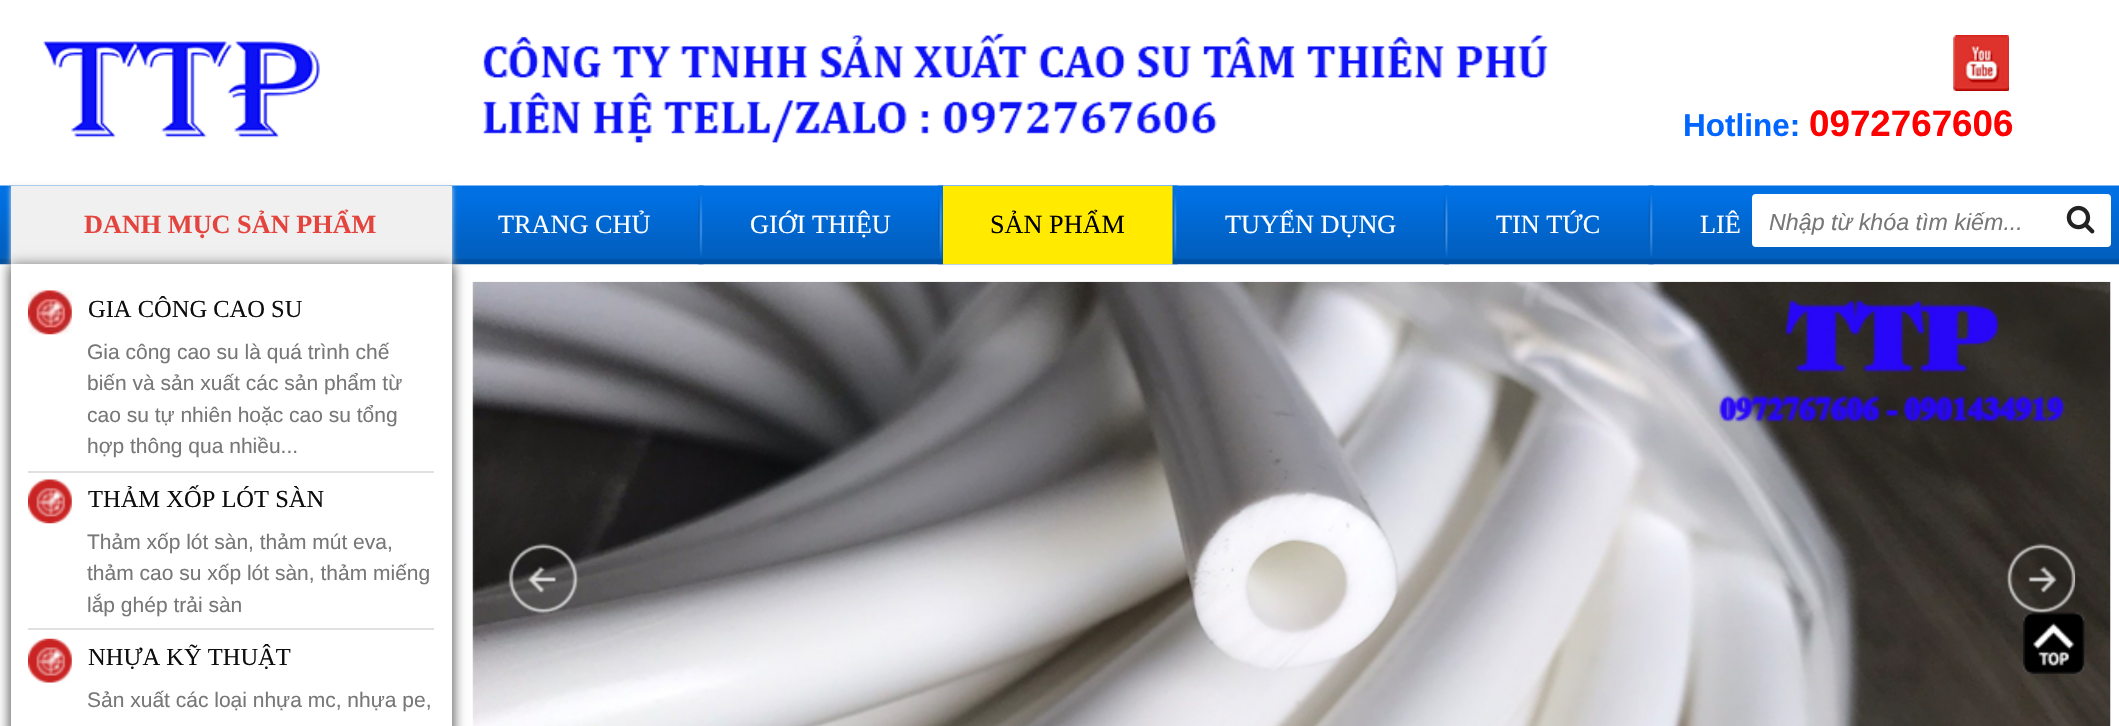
#include "include/core/SkBlurTypes.h"
#include "include/core/SkCanvas.h"
#include "include/core/SkData.h"
#include "include/core/SkFont.h"
#include "include/core/SkFontMgr.h"
#include "include/core/SkImage.h"
#include "include/core/SkMaskFilter.h"
#include "include/core/SkPaint.h"
#include "include/core/SkPathBuilder.h"
#include "include/core/SkTextBlob.h"
#include "include/effects/SkDashPathEffect.h"
#include "include/effects/SkGradientShader.h"
#include "include/utils/SkParsePath.h"

extern sk_sp<SkFontMgr> fontMgr;

void draw(SkCanvas* canvas) {
    SkPaint p;
    p.setAntiAlias(true);
    auto font = [&](const char* family, int weight, float size, bool italic = false) {
        SkFontStyle style(weight, SkFontStyle::kNormal_Width,
            italic ? SkFontStyle::kItalic_Slant : SkFontStyle::kUpright_Slant);
        SkFont result(fontMgr->matchFamilyStyle(family, style), size);
        result.setSubpixel(true);
        return result;
    };
    auto drawPhoto = [&](const char* path, float l, float t, float r, float b) {
        auto image = SkImages::DeferredFromEncodedData(SkData::MakeFromFileName(path));
        canvas->drawImageRect(image, SkRect::MakeLTRB(l, t, r, b), SkSamplingOptions());
    };
    canvas->clear(0xFFFFFFFF);
    drawPhoto("media/1.png", 43, 33, 1549, 143);
    drawPhoto("media/2.png", 1953, 35, 2009, 91);
    auto font1 = font("Liberation Sans", 700, 31.5f);
    p.setColor(0xFF0066FF);
    canvas->drawString("Hotline:", 1683, 136, font1, p);
    auto font2 = font("Liberation Sans", 700, 36.75f);
    p.setColor(0xFFFF0000);
    canvas->drawString("0972767606", 1809, 136, font2, p);
    drawPhoto("media/3.png", 0, 185, 2119, 265);
    p.setColor(0xFFE4E4E4);
    p.setMaskFilter(SkMaskFilter::MakeBlur(kNormal_SkBlurStyle, 2.5f));
    canvas->drawRect(SkRect::MakeLTRB(11, 186, 452, 264), p);
    p.setMaskFilter(nullptr);
    p.setColor(0xFF7D7D7D);
    p.setMaskFilter(SkMaskFilter::MakeBlur(kNormal_SkBlurStyle, 6));
    canvas->drawRect(SkRect::MakeLTRB(11, 266, 452, 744), p);
    p.setMaskFilter(nullptr);
    p.setColor(0xFFF0F0F0);
    canvas->drawRect(SkRect::MakeLTRB(11, 186, 452, 264), p);
    auto font3 = font("Liberation Serif", 700, 26.25f);
    p.setColor(0xFFE4443E);
    canvas->drawString("DANH MỤC SẢN PHẨM", 84, 233, font3, p);
    p.setColor(0xFF7D7D7D);
    p.setMaskFilter(SkMaskFilter::MakeBlur(kNormal_SkBlurStyle, 6));
    canvas->drawRect(SkRect::MakeLTRB(11, 264, 452, 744), p);
    p.setMaskFilter(nullptr);
    p.setColor(0xFFFFFFFF);
    canvas->drawRect(SkRect::MakeLTRB(11, 264, 452, 726), p);
    p.setColor(0xFFE0E0E0);
    canvas->drawRect(SkRect::MakeLTRB(28, 471, 434, 473), p);
    drawPhoto("media/4.png", 28, 290, 72, 335);
    auto font4 = font("Liberation Serif", 400, 24.5f);
    p.setColor(0xFF0E0E0E);
    canvas->drawString("GIA CÔNG CAO SU", 88, 317, font4, p);
    auto font5 = font("Liberation Sans", 400, 21);
    p.setColor(0xFF777777);
    {
        const struct { const char* s; float x, y; } items[] = {
            {"Gia công cao su là quá trình chế", 87, 359},
            {"biến và sản xuất các sản phẩm từ", 87, 390},
            {"cao su tự nhiên hoặc cao su tổng", 87, 422},
            {"hợp thông qua nhiều...", 87, 453},
        };
        for (auto [s, x, y] : items) {
            canvas->drawString(s, x, y, font5, p);
        }
    }
    p.setColor(0xFFE0E0E0);
    canvas->drawRect(SkRect::MakeLTRB(28, 628, 434, 630), p);
    drawPhoto("media/5.png", 28, 479, 72, 524);
    p.setColor(0xFF0E0E0E);
    canvas->drawString("THẢM XỐP LÓT SÀN", 88, 507, font4, p);
    p.setColor(0xFF777777);
    {
        const struct { const char* s; float x, y; } items[] = {
            {"Thảm xốp lót sàn, thảm mút eva,", 87, 549},
            {"thảm cao su xốp lót sàn, thảm miếng", 87, 580},
            {"lắp ghép trải sàn", 87, 612},
        };
        for (auto [s, x, y] : items) {
            canvas->drawString(s, x, y, font5, p);
        }
    }
    drawPhoto("media/6.png", 28, 638, 72, 683);
    p.setColor(0xFF0E0E0E);
    canvas->drawString("NHỰA KỸ THUẬT", 88, 665, font4, p);
    p.setColor(0xFF777777);
    canvas->drawString("Sản xuất các loại nhựa mc, nhựa pe,", 87, 707, font5, p);
    auto font6 = font("Liberation Serif", 400, 26.25f);
    p.setColor(0xFFFFFFFF);
    canvas->drawString("TRANG CHỦ", 498, 233, font6, p);
    drawPhoto("media/7.png", 698, 185, 704, 265);
    canvas->drawString("GIỚI THIỆU", 750, 233, font6, p);
    drawPhoto("media/8.png", 938, 185, 944, 265);
    p.setColor(0xFFFFEA00);
    canvas->drawRect(SkRect::MakeLTRB(943, 186, 1173, 264), p);
    p.setColor(0xFF000000);
    canvas->drawString("SẢN PHẨM", 990, 233, font6, p);
    drawPhoto("media/9.png", 1172, 185, 1178, 265);
    p.setColor(0xFFFFFFFF);
    canvas->drawString("TUYỂN DỤNG", 1225, 233, font6, p);
    drawPhoto("media/10.png", 1443, 185, 1449, 265);
    canvas->drawString("TIN TỨC", 1496, 233, font6, p);
    drawPhoto("media/11.png", 1648, 185, 1654, 265);
    canvas->drawString("LIÊ", 1700, 233, font6, p);
    canvas->drawRoundRect(SkRect::MakeLTRB(1752, 194, 2111, 247), 4, 4, p);
    auto font7 = font("Liberation Sans", 400, 23.25f, true);
    p.setColor(0xFF777777);
    canvas->drawString("Nhập từ khóa tìm kiếm...", 1769, 230, font7, p);
    drawPhoto("media/12.png", 2066, 205, 2095, 234);
    drawPhoto("media/13.png", 472, 281, 2111, 726);
    drawPhoto("media/14.png", 508, 543, 578, 614);
    drawPhoto("media/15.png", 2006, 543, 2076, 614);
    drawPhoto("media/16.png", 2023, 612, 2085, 674);
}
